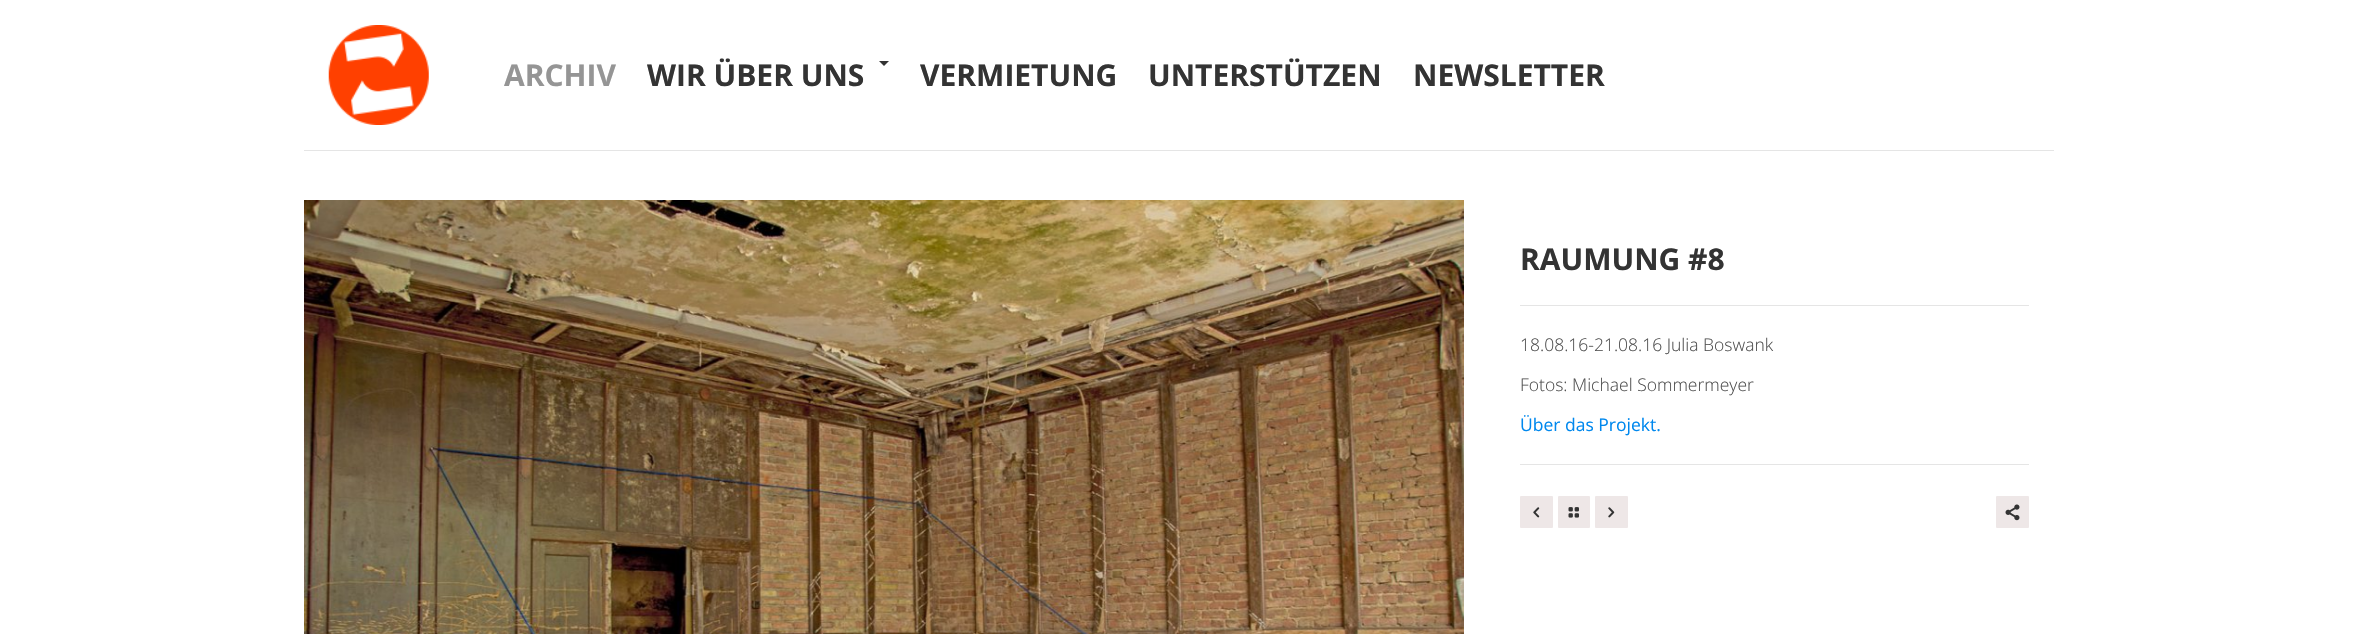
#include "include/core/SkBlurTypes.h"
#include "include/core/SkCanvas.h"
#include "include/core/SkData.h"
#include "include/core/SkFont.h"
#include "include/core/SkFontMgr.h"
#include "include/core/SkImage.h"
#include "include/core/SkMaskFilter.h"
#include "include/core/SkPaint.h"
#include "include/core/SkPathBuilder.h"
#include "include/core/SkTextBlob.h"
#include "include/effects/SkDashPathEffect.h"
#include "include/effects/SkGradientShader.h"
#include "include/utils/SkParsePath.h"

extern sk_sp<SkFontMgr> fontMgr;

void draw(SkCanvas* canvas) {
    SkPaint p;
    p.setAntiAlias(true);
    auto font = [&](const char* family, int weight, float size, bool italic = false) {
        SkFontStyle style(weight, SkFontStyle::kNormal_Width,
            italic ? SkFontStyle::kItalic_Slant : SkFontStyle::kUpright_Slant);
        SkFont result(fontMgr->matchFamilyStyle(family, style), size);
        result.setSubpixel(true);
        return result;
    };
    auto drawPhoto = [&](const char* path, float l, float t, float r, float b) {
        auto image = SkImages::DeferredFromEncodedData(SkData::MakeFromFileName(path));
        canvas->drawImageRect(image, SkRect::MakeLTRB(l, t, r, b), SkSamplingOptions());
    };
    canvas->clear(0xFFFFFFFF);
    p.setColor(0xFFE5E5E5);
    canvas->drawRect(SkRect::MakeLTRB(304, 150, 2054, 151), p);
    drawPhoto("media/1.png", 328, 25, 429, 125);
    auto font1 = font("Open Sans", 700, 30);
    p.setColor(0xFF959595);
    canvas->drawString("ARCHIV", 504, 86, font1, p);
    p.setColor(0xFF333333);
    canvas->drawString("WIR ÜBER UNS", 647, 86, font1, p);
    canvas->drawPath(SkPathBuilder().moveTo(879, 61).lineTo(889, 61).lineTo(884, 66).close().detach(), p);
    {
        const struct { const char* s; float x, y; } items[] = {
            {"VERMIETUNG", 920, 86},
            {"UNTERSTÜTZEN", 1148, 86},
            {"NEWSLETTER", 1413, 86},
        };
        for (auto [s, x, y] : items) {
            canvas->drawString(s, x, y, font1, p);
        }
    }
    drawPhoto("media/2.png", 304, 200, 1464, 634);
    p.setColor(0xFFE5E5E5);
    canvas->drawRect(SkRect::MakeLTRB(1520, 305, 2029, 306), p);
    p.setColor(0xFF333333);
    canvas->drawString("RAUMUNG #8", 1520, 270, font1, p);
    auto font2 = font("Open Sans", 300, 17.5f);
    p.setColor(0xFF515151);
    canvas->drawString("18.08.16-21.08.16 Julia Boswank", 1520, 351, font2, p);
    canvas->drawString("Fotos: Michael Sommermeyer", 1520, 391, font2, p);
    auto font3 = font("Open Sans", 400, 17.5f);
    p.setColor(0xFF0088EE);
    canvas->drawString("Über das Projekt.", 1520, 431, font3, p);
    p.setColor(0xFFE5E5E5);
    canvas->drawRect(SkRect::MakeLTRB(1520, 464, 2029, 465), p);
    p.setColor(0xFFEEE7E7);
    canvas->drawRoundRect(SkRect::MakeLTRB(1520, 496, 1553, 528), 1, 1, p);
    drawPhoto("media/3.png", 1533, 507, 1540, 518);
    canvas->drawRoundRect(SkRect::MakeLTRB(1558, 496, 1590, 528), 1, 1, p);
    drawPhoto("media/4.png", 1568, 507, 1579, 518);
    canvas->drawRoundRect(SkRect::MakeLTRB(1595, 496, 1628, 528), 1, 1, p);
    drawPhoto("media/5.png", 1608, 507, 1615, 518);
    canvas->drawRoundRect(SkRect::MakeLTRB(1996, 496, 2029, 528), 1, 1, p);
    drawPhoto("media/6.png", 2005, 504, 2020, 521);
}
